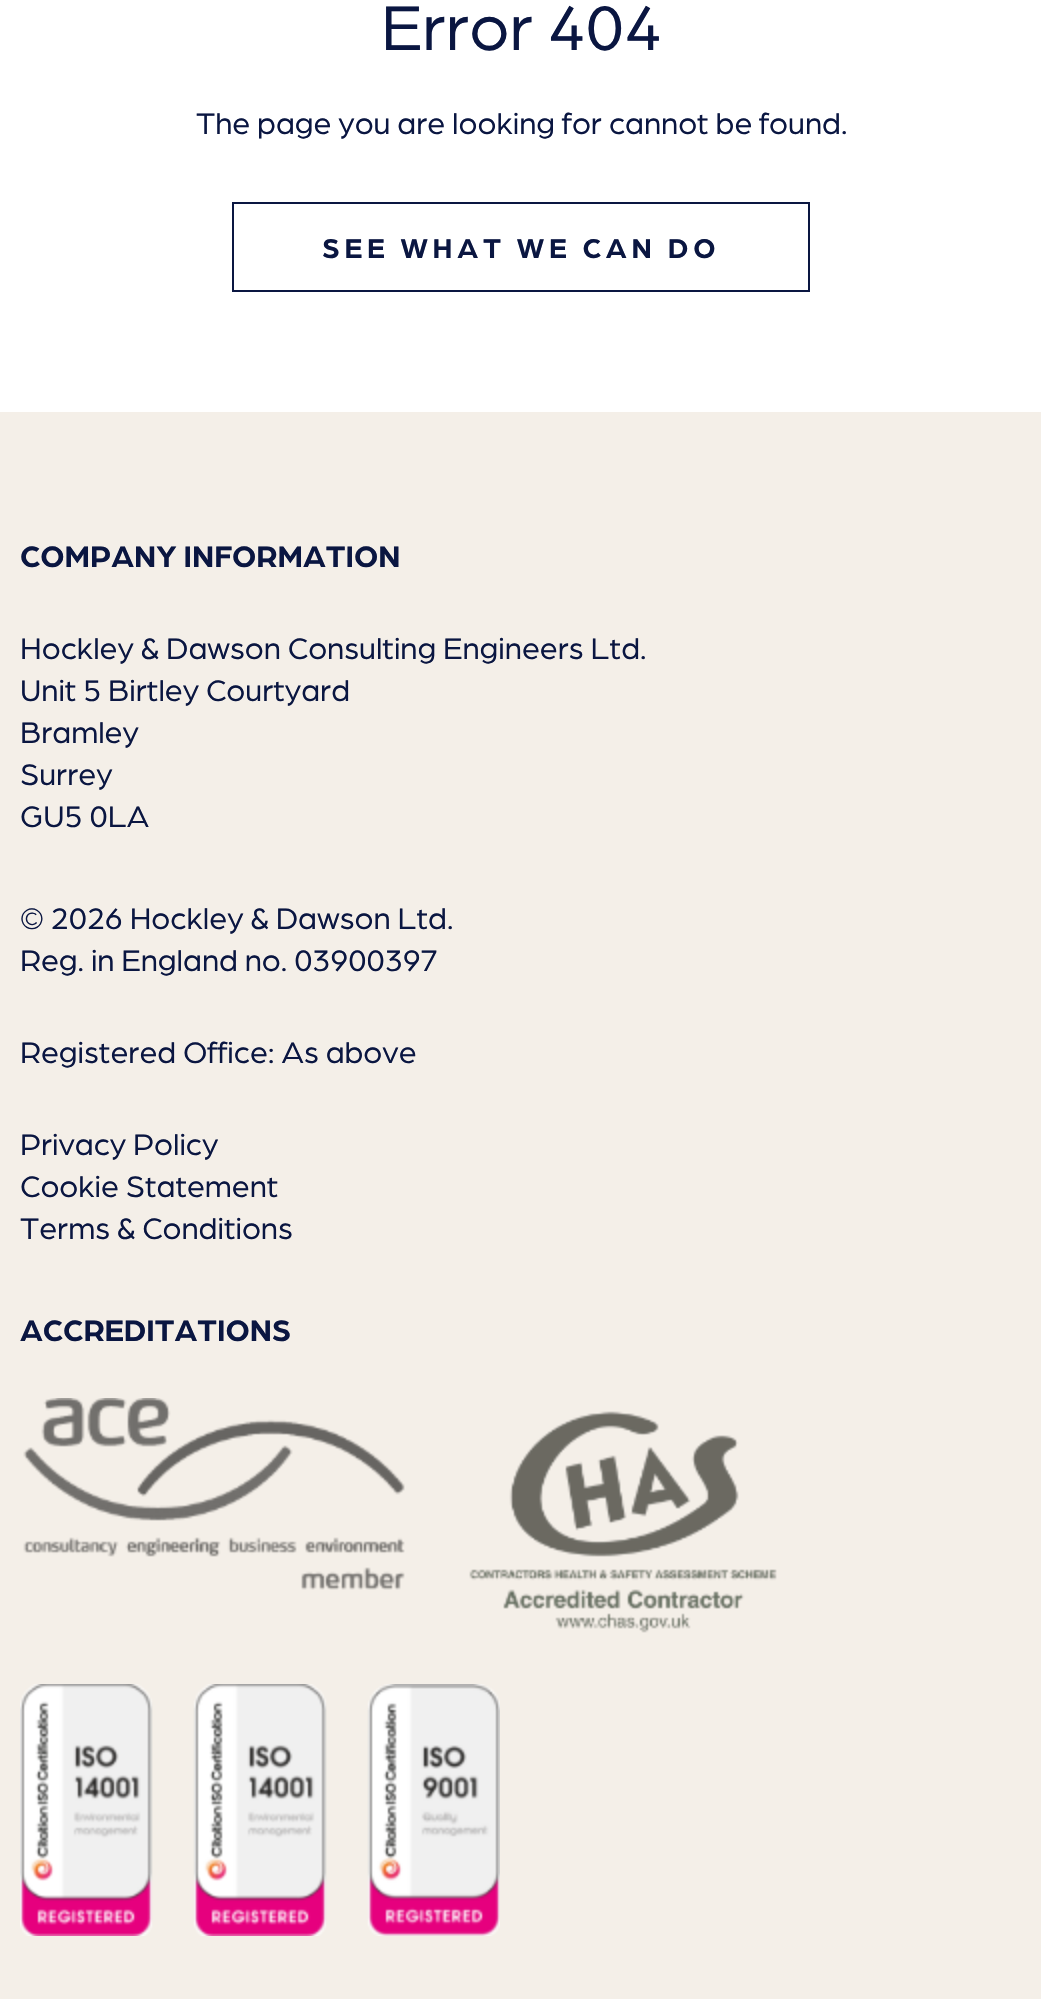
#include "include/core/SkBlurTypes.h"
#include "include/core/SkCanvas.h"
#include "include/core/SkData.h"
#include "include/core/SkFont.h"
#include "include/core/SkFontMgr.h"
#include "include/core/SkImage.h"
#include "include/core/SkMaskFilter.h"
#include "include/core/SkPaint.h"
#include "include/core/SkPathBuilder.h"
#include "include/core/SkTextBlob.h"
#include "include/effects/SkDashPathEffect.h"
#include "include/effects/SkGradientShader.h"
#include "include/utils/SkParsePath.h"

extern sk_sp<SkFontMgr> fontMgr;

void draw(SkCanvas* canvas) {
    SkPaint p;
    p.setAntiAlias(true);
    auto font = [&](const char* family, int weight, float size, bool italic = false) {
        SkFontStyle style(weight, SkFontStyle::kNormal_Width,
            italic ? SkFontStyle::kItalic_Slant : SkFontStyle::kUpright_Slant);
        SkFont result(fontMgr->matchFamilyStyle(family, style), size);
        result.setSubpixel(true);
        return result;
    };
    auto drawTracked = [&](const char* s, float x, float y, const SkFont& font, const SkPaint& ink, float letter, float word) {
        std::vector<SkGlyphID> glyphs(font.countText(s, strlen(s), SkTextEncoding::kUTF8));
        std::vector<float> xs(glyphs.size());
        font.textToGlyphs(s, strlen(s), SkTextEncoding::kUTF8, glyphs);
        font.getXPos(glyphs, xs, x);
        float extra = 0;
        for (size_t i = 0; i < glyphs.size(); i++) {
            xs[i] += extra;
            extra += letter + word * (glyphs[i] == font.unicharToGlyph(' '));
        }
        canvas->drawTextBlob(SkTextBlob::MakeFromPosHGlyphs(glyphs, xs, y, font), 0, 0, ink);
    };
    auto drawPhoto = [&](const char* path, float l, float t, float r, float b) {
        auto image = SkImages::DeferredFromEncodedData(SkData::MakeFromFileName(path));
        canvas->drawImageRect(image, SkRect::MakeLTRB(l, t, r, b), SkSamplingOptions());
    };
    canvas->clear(0xFFFFFFFF);
    auto font1 = font("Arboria", 400, 67);
    p.setColor(0xFF0A1641);
    canvas->drawString("Error 404", 381, 50, font1, p);
    auto font2 = font("Arboria", 400, 31.6f);
    canvas->drawString("The page you are looking for cannot be found.", 196, 134, font2, p);
    p.setStyle(SkPaint::kStroke_Style);
    p.setStrokeWidth(2);
    canvas->drawRect(SkRect::MakeLTRB(233, 203, 809, 291), p);
    auto font3 = font("Arboria", 700, 29);
    p.setStyle(SkPaint::kFill_Style);
    drawTracked("SEE WHAT WE CAN DO", 322, 258, font3, p, 4.75f, 0);
    p.setColor(0xFFF4EFE8);
    canvas->drawRect(SkRect::MakeLTRB(0, 412, 1041, 1999), p);
    auto font4 = font("Arboria", 700, 31.6f);
    p.setColor(0xFF0A1641);
    canvas->drawString("COMPANY INFORMATION", 20, 567, font4, p);
    {
        const struct { const char* s; float x, y; } items[] = {
            {"Hockley & Dawson Consulting Engineers Ltd.", 20, 659},
            {"Unit 5 Birtley Courtyard", 20, 701},
            {"Bramley", 20, 743},
            {"Surrey", 20, 785},
            {"GU5 0LA", 20, 827},
            {"© 2026 Hockley & Dawson Ltd.", 20, 929},
            {"Reg. in England no. 03900397", 20, 971},
            {"Registered Office: As above", 20, 1063},
            {"Privacy Policy", 20, 1155},
            {"Cookie Statement", 20, 1197},
            {"Terms & Conditions", 20, 1239},
        };
        for (auto [s, x, y] : items) {
            canvas->drawString(s, x, y, font2, p);
        }
    }
    canvas->drawString("ACCREDITATIONS", 20, 1341, font4, p);
    drawPhoto("media/1.png", 23, 1398, 405, 1590);
    drawPhoto("media/2.png", 469, 1411, 777, 1633);
    drawPhoto("media/3.png", 20, 1684, 500, 1936);
}
